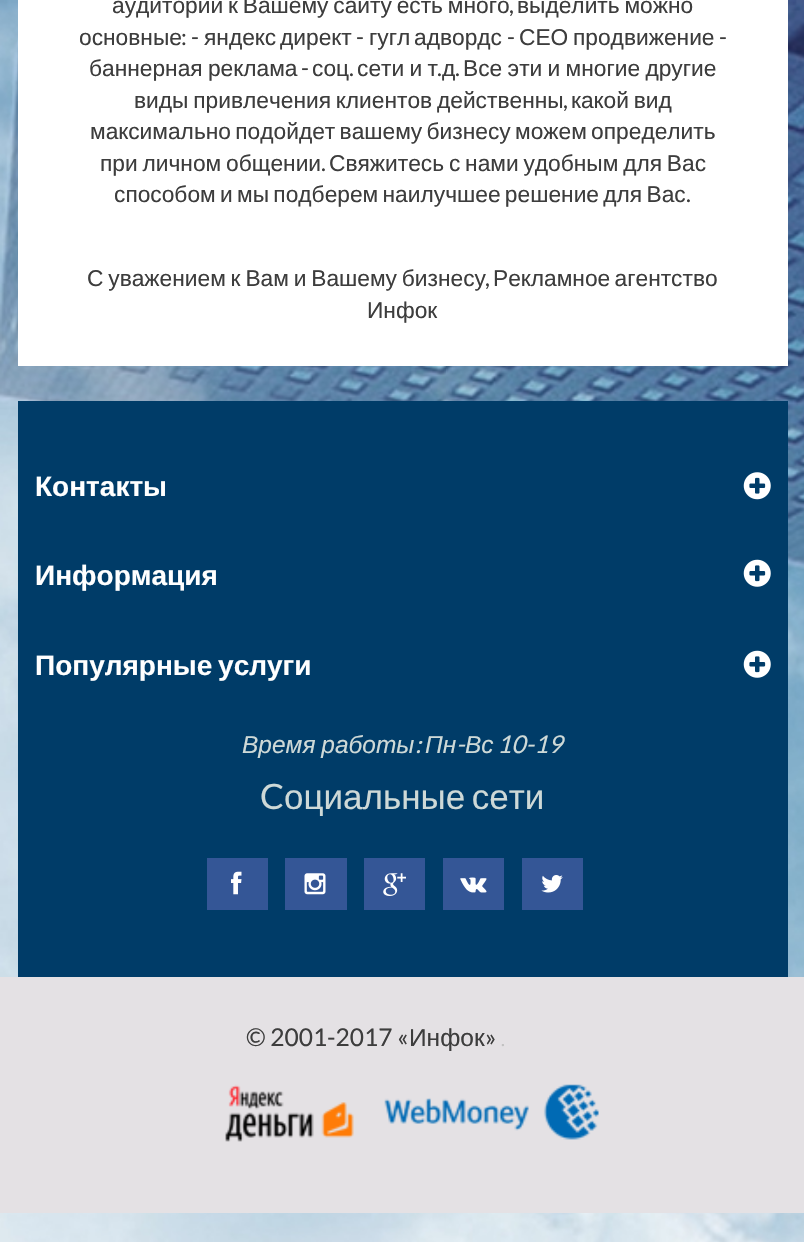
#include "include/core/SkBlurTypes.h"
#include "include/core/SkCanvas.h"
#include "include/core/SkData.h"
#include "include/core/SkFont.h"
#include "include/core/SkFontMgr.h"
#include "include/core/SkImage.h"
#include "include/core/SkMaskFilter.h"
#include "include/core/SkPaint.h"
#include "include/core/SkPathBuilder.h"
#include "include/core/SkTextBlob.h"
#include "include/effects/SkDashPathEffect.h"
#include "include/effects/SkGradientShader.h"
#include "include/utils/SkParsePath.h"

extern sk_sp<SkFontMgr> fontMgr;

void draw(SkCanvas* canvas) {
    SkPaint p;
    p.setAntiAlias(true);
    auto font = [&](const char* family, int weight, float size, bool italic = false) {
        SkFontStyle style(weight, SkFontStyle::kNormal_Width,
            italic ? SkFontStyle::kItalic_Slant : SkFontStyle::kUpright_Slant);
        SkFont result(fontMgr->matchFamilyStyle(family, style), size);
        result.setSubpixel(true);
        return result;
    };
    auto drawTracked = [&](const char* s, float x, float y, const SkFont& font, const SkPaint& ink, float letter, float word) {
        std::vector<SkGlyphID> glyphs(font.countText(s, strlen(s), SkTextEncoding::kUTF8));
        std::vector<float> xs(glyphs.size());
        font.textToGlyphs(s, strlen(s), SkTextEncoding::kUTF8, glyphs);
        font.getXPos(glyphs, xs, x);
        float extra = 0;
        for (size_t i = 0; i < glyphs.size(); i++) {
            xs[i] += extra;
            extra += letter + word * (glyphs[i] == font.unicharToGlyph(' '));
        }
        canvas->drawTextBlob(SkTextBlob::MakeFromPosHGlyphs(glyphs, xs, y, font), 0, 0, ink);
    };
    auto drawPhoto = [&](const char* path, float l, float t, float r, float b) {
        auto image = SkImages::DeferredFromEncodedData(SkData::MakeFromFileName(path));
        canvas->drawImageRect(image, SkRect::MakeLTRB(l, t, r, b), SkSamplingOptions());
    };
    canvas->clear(0xFFFFFFFF);
    drawPhoto("media/1.png", 0, 0, 804, 1242);
    p.setColor(0xFFFFFFFF);
    canvas->drawRect(SkRect::MakeLTRB(18, 0, 788, 366), p);
    auto font1 = font("Liberation Sans", 400, 22.75f);
    p.setColor(0xFF3D3D3D);
    drawTracked("аудитории к Вашему сайту есть много", 112, 13, font1, p, 0, -1.5f);
    auto font2 = font("Lato", 400, 22.75f);
    canvas->drawString(",", 509, 13, font2, p);
    drawTracked("выделить можно", 517, 13, font1, p, 0, -1.5f);
    canvas->drawString("основные", 79, 45, font1, p);
    canvas->drawString(": -", 181, 45, font2, p);
    canvas->drawString("яндекс", 204, 45, font1, p);
    canvas->drawString("директ", 280, 45, font1, p);
    canvas->drawString("-", 356, 45, font2, p);
    canvas->drawString("гугл", 369, 45, font1, p);
    canvas->drawString("адвордс", 414, 45, font1, p);
    canvas->drawString("-", 507, 45, font2, p);
    canvas->drawString("СЕО", 519, 45, font1, p);
    canvas->drawString("продвижение", 573, 45, font1, p);
    canvas->drawString("-", 719, 45, font2, p);
    drawTracked("баннерная реклама", 89, 76, font1, p, 0, -1);
    canvas->drawString("-", 301, 76, font2, p);
    canvas->drawString("соц", 312, 76, font1, p);
    drawTracked("сети и т", 357, 76, font1, p, 0, -1);
    canvas->drawString("д", 442, 76, font1, p);
    drawTracked("Все эти и многие другие", 463, 76, font1, p, 0, -1);
    {
        const struct { const char* s; float x, y; } items[] = {
            {".", 349, 76},
            {".", 437, 76},
            {".", 455, 76},
        };
        for (auto [s, x, y] : items) {
            canvas->drawString(s, x, y, font2, p);
        }
    }
    drawTracked("виды привлечения клиентов действенны", 134, 108, font1, p, 0, -1.5f);
    canvas->drawString(",", 563, 108, font2, p);
    drawTracked("какой вид", 571, 108, font1, p, 0, -1.5f);
    drawTracked("максимально подойдет вашему бизнесу можем определить", 90, 139, font1, p, 0, -2);
    drawTracked("при личном общении", 100, 171, font1, p, 0, -1.5f);
    canvas->drawString(".", 321, 171, font2, p);
    drawTracked("Свяжитесь с нами удобным для Вас", 329, 171, font1, p, 0, -1.5f);
    drawTracked("способом и мы подберем наилучшее решение для Вас", 114, 202, font1, p, 0, -2);
    canvas->drawString(".", 686, 202, font2, p);
    drawTracked("С уважением к Вам и Вашему бизнесу", 87, 286, font1, p, 0, -1.5f);
    canvas->drawString(",", 485, 286, font2, p);
    drawTracked("Рекламное агентство", 493, 286, font1, p, 0, -2);
    canvas->drawString("Инфок", 367, 318, font1, p);
    p.setColor(0xFF003C68);
    canvas->drawRect(SkRect::MakeLTRB(18, 401, 788, 977), p);
    auto font3 = font("Liberation Sans", 700, 28);
    p.setColor(0xFFFFFFFF);
    canvas->drawString("Контакты", 35, 496, font3, p);
    drawPhoto("media/2.png", 743, 472, 771, 500);
    canvas->drawString("Информация", 35, 585, font3, p);
    drawPhoto("media/3.png", 743, 559, 771, 587);
    drawTracked("Популярные услуги", 35, 675, font3, p, 0, -2);
    drawPhoto("media/3.png", 743, 650, 771, 678);
    auto font4 = font("Liberation Sans", 400, 24.5f, true);
    p.setColor(0xFFCED9D7);
    drawTracked("Время работы", 242, 753, font4, p, 0, -1);
    auto font5 = font("Lato", 400, 24.5f, true);
    canvas->drawString(":", 415, 753, font5, p);
    canvas->drawString("Пн", 425, 753, font4, p);
    canvas->drawString("-", 456, 753, font5, p);
    canvas->drawString("Вс", 465, 753, font4, p);
    canvas->drawString("10-19", 497, 753, font5, p);
    auto font6 = font("Lato", 400, 35);
    canvas->drawString("C", 260, 809, font6, p);
    auto font7 = font("Liberation Sans", 400, 35);
    drawTracked("оциальные сети", 284, 809, font7, p, 0, -3);
    p.setColor(0xFF345696);
    canvas->drawRect(SkRect::MakeLTRB(207, 858, 268, 910), p);
    drawPhoto("media/4.png", 231, 871, 242, 895);
    canvas->drawRect(SkRect::MakeLTRB(285, 858, 347, 910), p);
    drawPhoto("media/5.png", 304, 873, 326, 895);
    canvas->drawRect(SkRect::MakeLTRB(364, 858, 425, 910), p);
    drawPhoto("media/6.png", 383, 873, 406, 896);
    canvas->drawRect(SkRect::MakeLTRB(443, 858, 504, 910), p);
    drawPhoto("media/7.png", 460, 877, 487, 893);
    canvas->drawRect(SkRect::MakeLTRB(522, 858, 583, 910), p);
    drawPhoto("media/8.png", 541, 875, 563, 893);
    p.setColor(0xFFE4E1E4);
    canvas->drawRect(SkRect::MakeLTRB(0, 977, 804, 1213), p);
    auto font8 = font("Lato", 400, 24.5f);
    p.setColor(0xFF3D3D3D);
    canvas->drawString("© 2001-2017 «", 246, 1046, font8, p);
    auto font9 = font("Liberation Sans", 400, 24.5f);
    canvas->drawString("Инфок", 409, 1046, font9, p);
    canvas->drawString("»", 485, 1046, font8, p);
    auto font10 = font("Lato", 400, 18);
    p.setColor(0xFFC0C0C0);
    canvas->drawString(".", 501, 1046, font10, p);
    drawPhoto("media/9.png", 225, 1084, 599, 1142);
}
